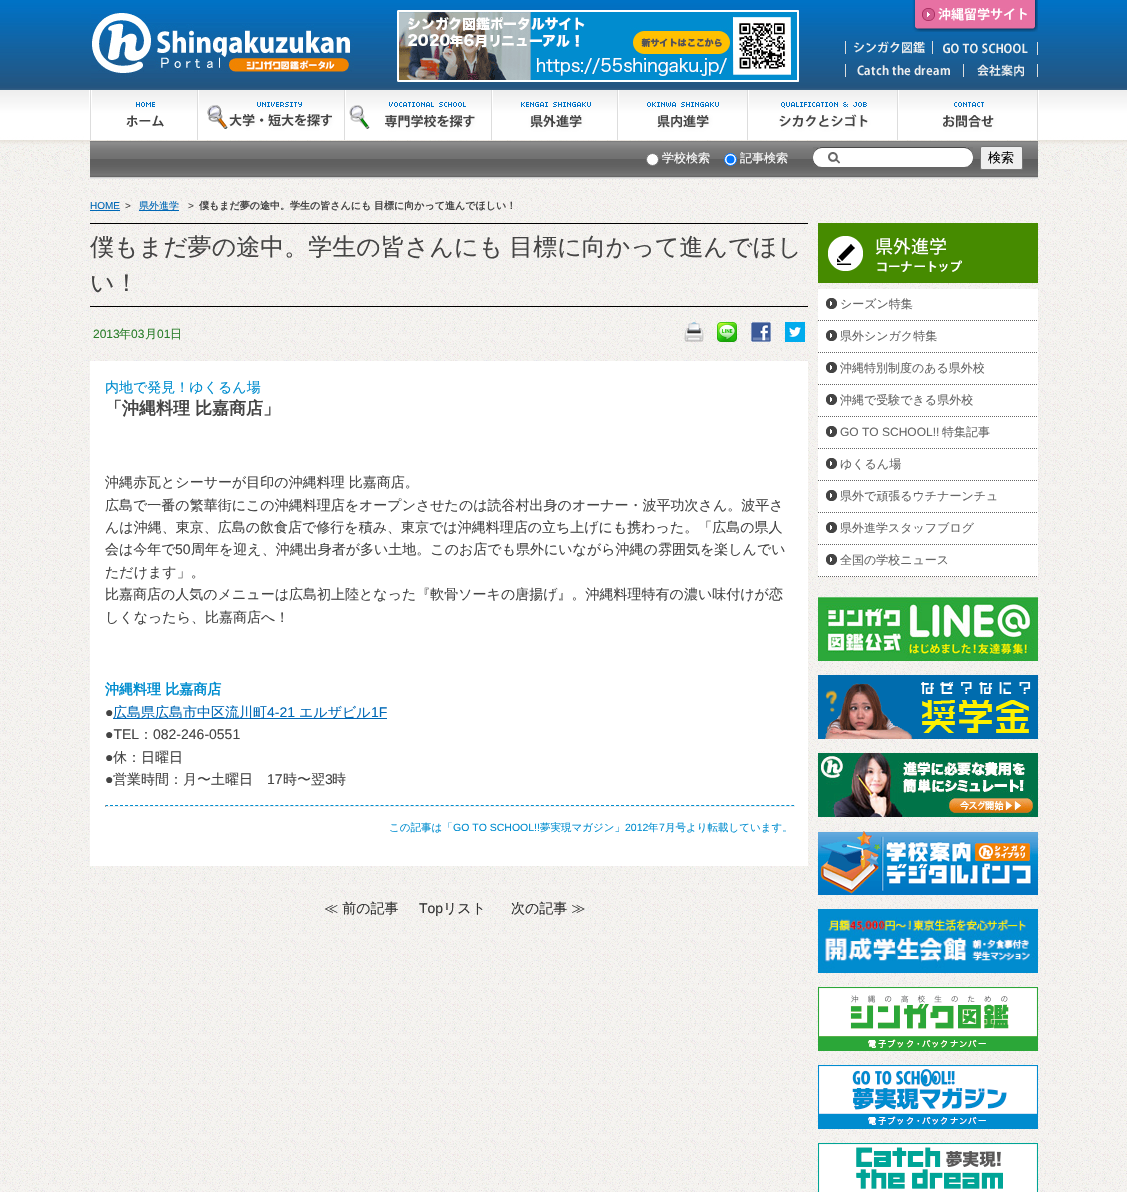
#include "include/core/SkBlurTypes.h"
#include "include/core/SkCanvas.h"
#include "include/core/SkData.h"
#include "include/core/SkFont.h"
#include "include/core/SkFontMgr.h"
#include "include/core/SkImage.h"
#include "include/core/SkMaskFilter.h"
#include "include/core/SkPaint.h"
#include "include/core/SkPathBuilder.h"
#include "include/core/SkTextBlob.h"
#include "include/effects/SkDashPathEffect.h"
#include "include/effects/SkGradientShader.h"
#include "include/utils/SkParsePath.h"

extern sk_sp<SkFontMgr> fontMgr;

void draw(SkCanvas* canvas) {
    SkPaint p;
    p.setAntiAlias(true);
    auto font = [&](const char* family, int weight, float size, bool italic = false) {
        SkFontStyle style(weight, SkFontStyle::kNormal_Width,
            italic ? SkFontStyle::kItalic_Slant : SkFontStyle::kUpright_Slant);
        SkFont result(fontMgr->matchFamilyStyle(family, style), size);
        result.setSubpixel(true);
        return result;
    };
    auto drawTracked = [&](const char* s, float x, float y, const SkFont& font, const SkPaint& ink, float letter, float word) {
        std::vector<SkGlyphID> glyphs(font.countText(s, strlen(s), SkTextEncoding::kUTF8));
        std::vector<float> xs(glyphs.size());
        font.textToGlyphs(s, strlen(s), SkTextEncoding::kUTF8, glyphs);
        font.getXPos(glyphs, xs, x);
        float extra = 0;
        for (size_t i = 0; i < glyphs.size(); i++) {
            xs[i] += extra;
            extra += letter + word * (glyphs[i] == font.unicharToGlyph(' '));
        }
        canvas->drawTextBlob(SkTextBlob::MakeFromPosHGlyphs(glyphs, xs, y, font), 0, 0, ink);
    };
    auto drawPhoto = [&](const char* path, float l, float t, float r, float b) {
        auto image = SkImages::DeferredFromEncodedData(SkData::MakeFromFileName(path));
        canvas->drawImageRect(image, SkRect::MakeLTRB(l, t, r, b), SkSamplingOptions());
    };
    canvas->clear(0xFFFFFFFF);
    drawPhoto("media/1.png", 0, 179, 1127, 1192);
    drawPhoto("media/2.png", 0, 0, 1127, 179);
    drawPhoto("media/3.png", 91, 10, 799, 82);
    drawPhoto("media/4.png", 912, 0, 1038, 32);
    drawPhoto("media/5.png", 845, 41, 933, 54);
    drawPhoto("media/6.png", 943, 42, 1038, 55);
    drawPhoto("media/7.png", 845, 64, 964, 77);
    drawPhoto("media/8.png", 977, 64, 1038, 77);
    drawPhoto("media/9.png", 89, 90, 1039, 141);
    drawPhoto("media/10.png", 90, 141, 1038, 179);
    p.setColor(0xFFFFFFFF);
    canvas->drawCircle(652.5f, 159.5f, 6, p);
    p.setStyle(SkPaint::kStroke_Style);
    p.setStrokeWidth(1);
    p.setColor(0xFF767676);
    canvas->drawCircle(652.5f, 159.5f, 6, p);
    auto font1 = font("WenQuanYi Zen Hei", 500, 12);
    p.setStyle(SkPaint::kFill_Style);
    p.setColor(0xFFFFFFFF);
    canvas->drawString("学校検索", 662, 162, font1, p);
    canvas->drawCircle(730.5f, 159.5f, 6, p);
    p.setStyle(SkPaint::kStroke_Style);
    p.setColor(0xFF0075FF);
    canvas->drawCircle(730.5f, 159.5f, 6, p);
    p.setStyle(SkPaint::kFill_Style);
    canvas->drawCircle(730.5f, 159.5f, 4, p);
    p.setColor(0xFFFFFFFF);
    canvas->drawString("記事検索", 740, 162, font1, p);
    drawPhoto("media/11.png", 813, 147, 973, 167);
    drawPhoto("media/12.png", 828, 152, 840, 164);
    p.setColor(0xFFEFEFEF);
    canvas->drawRoundRect(SkRect::MakeLTRB(980.5f, 146.5f, 1022.5f, 169.5f), 1.5f, 1.5f, p);
    p.setStyle(SkPaint::kStroke_Style);
    p.setColor(0xFF767676);
    canvas->drawRoundRect(SkRect::MakeLTRB(980.5f, 146.5f, 1022.5f, 169.5f), 1.5f, 1.5f, p);
    auto font2 = font("WenQuanYi Zen Hei", 500, 13);
    p.setStyle(SkPaint::kFill_Style);
    p.setColor(0xFF000000);
    canvas->drawString("検索", 988, 162, font2, p);
    auto font3 = font("Liberation Sans", 400, 10);
    p.setColor(0xFF0068B6);
    canvas->drawString("HOME", 90, 209, font3, p);
    canvas->drawRect(SkRect::MakeLTRB(90, 210, 120, 211), p);
    p.setColor(0xFF444444);
    canvas->drawString(">", 125, 209, font3, p);
    p.setColor(0xFF0068B6);
    canvas->drawRect(SkRect::MakeLTRB(139, 210, 179, 211), p);
    auto font4 = font("WenQuanYi Zen Hei", 500, 10);
    canvas->drawString("県外進学", 139, 209, font4, p);
    p.setColor(0xFF444444);
    canvas->drawString(">", 188, 209, font3, p);
    auto font5 = font("WenQuanYi Zen Hei", 700, 10);
    canvas->drawString("僕もまだ夢の途中。学生の皆さんにも 目標に向かって進んでほしい！", 199, 209, font5, p);
    p.setColor(0xFF000000);
    canvas->drawRect(SkRect::MakeLTRB(90, 223, 808, 224), p);
    canvas->drawRect(SkRect::MakeLTRB(90, 306, 808, 307), p);
    auto font6 = font("WenQuanYi Zen Hei", 500, 24);
    p.setColor(0xFF444444);
    drawTracked("僕もまだ夢の途中。学生の皆さんにも 目標に向かって進んでほし", 90, 255, font6, p, 0, -1);
    canvas->drawString("い！", 90, 291, font6, p);
    auto font7 = font("Liberation Sans", 400, 12);
    p.setColor(0xFF2C7F2C);
    canvas->drawString("2013", 93, 338, font7, p);
    canvas->drawString("年", 119, 338, font1, p);
    canvas->drawString("03", 131, 338, font7, p);
    canvas->drawString("月", 145, 338, font1, p);
    canvas->drawString("01", 157, 338, font7, p);
    canvas->drawString("日", 170, 338, font1, p);
    drawPhoto("media/13.png", 684, 322, 704, 342);
    drawPhoto("media/14.png", 717, 322, 737, 342);
    drawPhoto("media/15.png", 751, 322, 771, 342);
    drawPhoto("media/16.png", 785, 322, 805, 342);
    p.setColor(0xFFFFFFFF);
    canvas->drawRect(SkRect::MakeLTRB(90, 361, 808, 866), p);
    auto font8 = font("WenQuanYi Zen Hei", 500, 14);
    p.setColor(0xFF008DCF);
    canvas->drawString("内地で発見！ゆくるん場", 105, 392, font8, p);
    auto font9 = font("WenQuanYi Zen Hei", 700, 17);
    p.setColor(0xFF444444);
    canvas->drawString("「沖縄料理 比嘉商店」", 105, 414, font9, p);
    {
        const struct { const char* s; float x, y; } items[] = {
            {"沖縄赤瓦とシーサーが目印の沖縄料理 比嘉商店。", 105, 487},
            {"広島で一番の繁華街にこの沖縄料理店をオープンさせたのは読谷村出身のオーナー・波平功次さん。波平さ", 105, 510},
            {"んは沖縄、東京、広島の飲食店で修行を積み、東京では沖縄料理店の立ち上げにも携わった。「広島の県人", 105, 532},
            {"会は今年で", 105, 554},
        };
        for (auto [s, x, y] : items) {
            canvas->drawString(s, x, y, font8, p);
        }
    }
    auto font10 = font("Liberation Sans", 400, 14);
    canvas->drawString("50", 175, 554, font10, p);
    {
        const struct { const char* s; float x, y; } items[] = {
            {"周年を迎え、沖縄出身者が多い土地。このお店でも県外にいながら沖縄の雰囲気を楽しんでい", 191, 554},
            {"ただけます」。", 105, 577},
            {"比嘉商店の人気のメニューは広島初上陸となった『軟骨ソーキの唐揚げ』。沖縄料理特有の濃い味付けが恋", 105, 599},
            {"しくなったら、比嘉商店へ！", 105, 622},
        };
        for (auto [s, x, y] : items) {
            canvas->drawString(s, x, y, font8, p);
        }
    }
    auto font11 = font("WenQuanYi Zen Hei", 700, 14);
    p.setColor(0xFF008DCF);
    canvas->drawString("沖縄料理 比嘉商店", 105, 694, font11, p);
    p.setColor(0xFF444444);
    canvas->drawString("●", 105, 717, font10, p);
    p.setColor(0xFF0068B6);
    canvas->drawRect(SkRect::MakeLTRB(113, 718, 387, 719), p);
    canvas->drawString("広島県広島市中区流川町", 113, 717, font8, p);
    canvas->drawString("4-21", 267, 717, font10, p);
    canvas->drawString("エルザビル", 299, 717, font8, p);
    canvas->drawString("1F", 371, 717, font10, p);
    p.setColor(0xFF444444);
    canvas->drawString("●TEL", 105, 739, font10, p);
    canvas->drawString("：", 139, 739, font8, p);
    canvas->drawString("082-246-0551", 153, 739, font10, p);
    canvas->drawString("●", 105, 762, font10, p);
    canvas->drawString("休：日曜日", 113, 762, font8, p);
    canvas->drawString("●", 105, 784, font10, p);
    canvas->drawString("営業時間：月〜土曜日", 113, 784, font8, p);
    canvas->drawString("17", 267, 784, font10, p);
    canvas->drawString("時〜翌", 283, 784, font8, p);
    canvas->drawString("3", 325, 784, font10, p);
    canvas->drawString("時", 332, 784, font8, p);
    p.setStyle(SkPaint::kStroke_Style);
    p.setColor(0xFF008DCF);
    p.setPathEffect(SkDashPathEffect::Make({{3, 2.01f}}, 0));
    canvas->drawPath(SkPathBuilder().moveTo(105, 805.5f).lineTo(795, 805.5f).detach(), p);
    p.setPathEffect(nullptr);
    p.setStyle(SkPaint::kFill_Style);
    {
        const struct { float l, t, r, b; SkColor color; } items[] = {
            {794, 805, 795, 807, 0xFFEEEEEE},
            {105, 806, 795, 807, 0xFFEEEEEE},
            {105, 805, 106, 807, 0xFF9F9F9F},
        };
        for (auto [l, t, r, b, color] : items) {
            p.setColor(color);
            canvas->drawRect(SkRect::MakeLTRB(l, t, r, b), p);
        }
    }
    auto font12 = font("WenQuanYi Zen Hei", 500, 10.5f);
    p.setColor(0xFF008DCF);
    canvas->drawString("この記事は「", 389, 831, font12, p);
    auto font13 = font("Liberation Sans", 400, 10.5f);
    canvas->drawString("GO TO SCHOOL!!", 453, 831, font13, p);
    canvas->drawString("夢実現マガジン」", 540, 831, font12, p);
    canvas->drawString("2012", 625, 831, font13, p);
    canvas->drawString("年", 648, 831, font12, p);
    canvas->drawString("7", 659, 831, font13, p);
    canvas->drawString("月号より転載しています。", 665, 831, font12, p);
    p.setColor(0xFF333333);
    canvas->drawString("≪ 前の記事", 324, 913, font8, p);
    canvas->drawString("Top", 419, 913, font10, p);
    canvas->drawString("リスト", 443, 913, font8, p);
    canvas->drawString("次の記事 ≫", 511, 913, font8, p);
    drawPhoto("media/17.png", 818, 223, 1038, 283);
    p.setColor(0xFFFFFFFF);
    canvas->drawRect(SkRect::MakeLTRB(818, 289, 1038, 577), p);
    drawPhoto("media/18.png", 826, 298, 837, 309);
    p.setStyle(SkPaint::kStroke_Style);
    p.setColor(0xFF666666);
    p.setPathEffect(SkDashPathEffect::Make({{1, 1}}, 0));
    canvas->drawPath(SkPathBuilder().moveTo(818, 320.5f).lineTo(1038, 320.5f).detach(), p);
    p.setPathEffect(nullptr);
    p.setStyle(SkPaint::kFill_Style);
    canvas->drawString("シーズン特集", 840, 308, font1, p);
    drawPhoto("media/18.png", 826, 330, 837, 341);
    p.setStyle(SkPaint::kStroke_Style);
    p.setPathEffect(SkDashPathEffect::Make({{1, 1}}, 0));
    canvas->drawPath(SkPathBuilder().moveTo(818, 352.5f).lineTo(1038, 352.5f).detach(), p);
    p.setPathEffect(nullptr);
    p.setStyle(SkPaint::kFill_Style);
    canvas->drawString("県外シンガク特集", 840, 340, font1, p);
    drawPhoto("media/18.png", 826, 362, 837, 373);
    p.setStyle(SkPaint::kStroke_Style);
    p.setPathEffect(SkDashPathEffect::Make({{1, 1}}, 0));
    canvas->drawPath(SkPathBuilder().moveTo(818, 384.5f).lineTo(1038, 384.5f).detach(), p);
    p.setPathEffect(nullptr);
    p.setStyle(SkPaint::kFill_Style);
    canvas->drawString("沖縄特別制度のある県外校", 840, 372, font1, p);
    drawPhoto("media/18.png", 826, 394, 837, 405);
    p.setStyle(SkPaint::kStroke_Style);
    p.setPathEffect(SkDashPathEffect::Make({{1, 1}}, 0));
    canvas->drawPath(SkPathBuilder().moveTo(818, 416.5f).lineTo(1038, 416.5f).detach(), p);
    p.setPathEffect(nullptr);
    p.setStyle(SkPaint::kFill_Style);
    canvas->drawString("沖縄で受験できる県外校", 840, 404, font1, p);
    drawPhoto("media/18.png", 826, 426, 837, 437);
    p.setStyle(SkPaint::kStroke_Style);
    p.setPathEffect(SkDashPathEffect::Make({{1, 1}}, 0));
    canvas->drawPath(SkPathBuilder().moveTo(818, 448.5f).lineTo(1038, 448.5f).detach(), p);
    p.setPathEffect(nullptr);
    p.setStyle(SkPaint::kFill_Style);
    canvas->drawString("GO TO SCHOOL!!", 840, 436, font7, p);
    canvas->drawString("特集記事", 942, 436, font1, p);
    drawPhoto("media/18.png", 826, 458, 837, 469);
    p.setStyle(SkPaint::kStroke_Style);
    p.setPathEffect(SkDashPathEffect::Make({{1, 1}}, 0));
    canvas->drawPath(SkPathBuilder().moveTo(818, 480.5f).lineTo(1038, 480.5f).detach(), p);
    p.setPathEffect(nullptr);
    p.setStyle(SkPaint::kFill_Style);
    canvas->drawString("ゆくるん場", 840, 468, font1, p);
    drawPhoto("media/18.png", 826, 490, 837, 501);
    p.setStyle(SkPaint::kStroke_Style);
    p.setPathEffect(SkDashPathEffect::Make({{1, 1}}, 0));
    canvas->drawPath(SkPathBuilder().moveTo(818, 512.5f).lineTo(1038, 512.5f).detach(), p);
    p.setPathEffect(nullptr);
    p.setStyle(SkPaint::kFill_Style);
    canvas->drawString("県外で頑張るウチナーンチュ", 840, 500, font1, p);
    drawPhoto("media/18.png", 826, 522, 837, 533);
    p.setStyle(SkPaint::kStroke_Style);
    p.setPathEffect(SkDashPathEffect::Make({{1, 1}}, 0));
    canvas->drawPath(SkPathBuilder().moveTo(818, 544.5f).lineTo(1038, 544.5f).detach(), p);
    p.setPathEffect(nullptr);
    p.setStyle(SkPaint::kFill_Style);
    canvas->drawString("県外進学スタッフブログ", 840, 532, font1, p);
    drawPhoto("media/18.png", 826, 554, 837, 565);
    p.setStyle(SkPaint::kStroke_Style);
    p.setPathEffect(SkDashPathEffect::Make({{1, 1}}, 0));
    canvas->drawPath(SkPathBuilder().moveTo(818, 576.5f).lineTo(1038, 576.5f).detach(), p);
    p.setPathEffect(nullptr);
    p.setStyle(SkPaint::kFill_Style);
    canvas->drawString("全国の学校ニュース", 840, 564, font1, p);
    drawPhoto("media/19.png", 818, 597, 1038, 661);
    drawPhoto("media/20.png", 818, 675, 1038, 739);
    drawPhoto("media/21.png", 818, 753, 1038, 817);
    drawPhoto("media/22.png", 818, 831, 1038, 895);
    drawPhoto("media/23.png", 818, 909, 1038, 973);
    drawPhoto("media/24.png", 818, 987, 1038, 1051);
    drawPhoto("media/25.png", 818, 1065, 1038, 1129);
    drawPhoto("media/26.png", 818, 1143, 1038, 1192);
}
